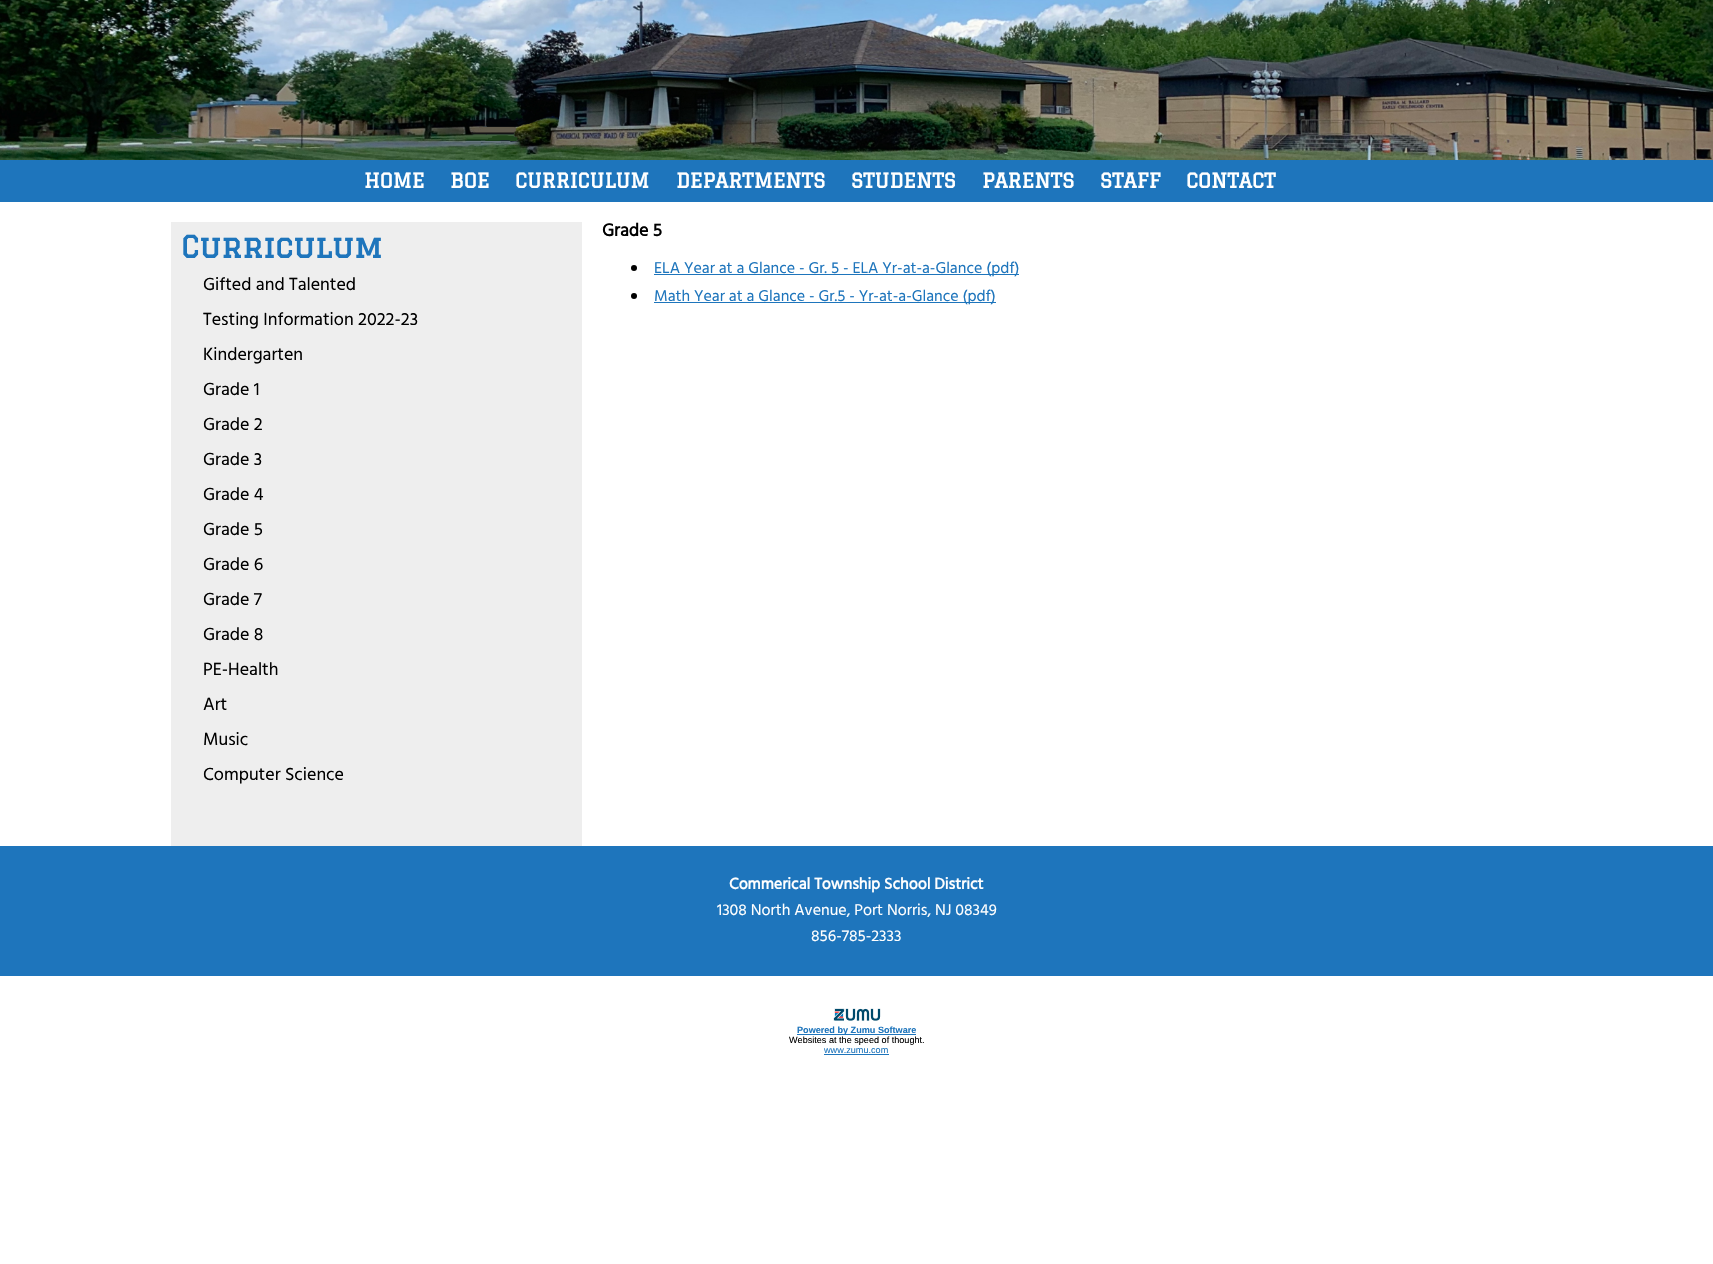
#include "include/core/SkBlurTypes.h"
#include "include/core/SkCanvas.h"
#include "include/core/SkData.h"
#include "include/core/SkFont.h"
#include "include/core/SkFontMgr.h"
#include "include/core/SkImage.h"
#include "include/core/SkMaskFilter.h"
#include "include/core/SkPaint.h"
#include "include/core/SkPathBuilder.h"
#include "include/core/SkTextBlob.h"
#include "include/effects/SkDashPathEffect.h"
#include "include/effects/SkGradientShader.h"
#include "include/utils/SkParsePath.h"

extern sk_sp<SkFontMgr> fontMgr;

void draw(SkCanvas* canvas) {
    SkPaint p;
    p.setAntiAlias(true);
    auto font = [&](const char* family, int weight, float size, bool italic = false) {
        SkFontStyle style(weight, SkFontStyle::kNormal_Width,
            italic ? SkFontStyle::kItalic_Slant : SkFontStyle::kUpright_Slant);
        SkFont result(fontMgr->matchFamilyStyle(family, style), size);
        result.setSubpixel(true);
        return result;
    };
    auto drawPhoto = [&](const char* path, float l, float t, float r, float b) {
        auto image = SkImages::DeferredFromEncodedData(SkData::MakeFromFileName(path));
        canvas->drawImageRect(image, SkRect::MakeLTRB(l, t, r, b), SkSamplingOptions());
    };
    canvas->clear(0xFFFFFFFF);
    drawPhoto("media/1.png", 0, 0, 1713, 160);
    p.setColor(0xFF1E75BC);
    canvas->drawRect(SkRect::MakeLTRB(0, 160, 1713, 202), p);
    auto font1 = font("Graduate", 700, 20);
    p.setColor(0xFFFFFFFF);
    {
        const struct { const char* s; float x, y; } items[] = {
            {"HOME", 364, 188},
            {"BOE", 450, 188},
            {"CURRICULUM", 515, 188},
            {"DEPARTMENTS", 676, 188},
            {"STUDENTS", 851, 188},
            {"PARENTS", 982, 188},
            {"STAFF", 1100, 188},
            {"CONTACT", 1186, 188},
        };
        for (auto [s, x, y] : items) {
            canvas->drawString(s, x, y, font1, p);
        }
    }
    p.setColor(0xFFEEEEEE);
    canvas->drawRect(SkRect::MakeLTRB(171, 222, 582, 846), p);
    auto font2 = font("Graduate", 700, 30);
    p.setColor(0xFF1E75BC);
    canvas->drawString("Curriculum", 181, 258, font2, p);
    auto font3 = font("Hind", 400, 18);
    p.setColor(0xFF000000);
    {
        const struct { const char* s; float x, y; } items[] = {
            {"Gifted and Talented", 203, 290},
            {"Testing Information 2022-23", 203, 325},
            {"Kindergarten", 203, 360},
            {"Grade 1", 203, 395},
            {"Grade 2", 203, 430},
            {"Grade 3", 203, 465},
            {"Grade 4", 203, 500},
            {"Grade 5", 203, 535},
            {"Grade 6", 203, 570},
            {"Grade 7", 203, 605},
            {"Grade 8", 203, 640},
            {"PE-Health", 203, 675},
            {"Art", 203, 710},
            {"Music", 203, 745},
            {"Computer Science", 203, 780},
        };
        for (auto [s, x, y] : items) {
            canvas->drawString(s, x, y, font3, p);
        }
    }
    auto font4 = font("Hind", 700, 18);
    canvas->drawString("Grade 5", 602, 236, font4, p);
    canvas->drawCircle(634, 268, 3, p);
    p.setColor(0xFF1E75BC);
    canvas->drawRect(SkRect::MakeLTRB(654, 274, 1019, 275), p);
    auto font5 = font("Hind", 400, 16);
    canvas->drawString("ELA Year at a Glance - Gr. 5 - ELA Yr-at-a-Glance (pdf)", 654, 273, font5, p);
    p.setColor(0xFF000000);
    canvas->drawCircle(634, 296, 3, p);
    p.setColor(0xFF1E75BC);
    canvas->drawRect(SkRect::MakeLTRB(654, 302, 996, 303), p);
    canvas->drawString("Math Year at a Glance - Gr.5 - Yr-at-a-Glance (pdf)", 654, 301, font5, p);
    canvas->drawRect(SkRect::MakeLTRB(0, 846, 1713, 976), p);
    auto font6 = font("Hind", 700, 16);
    p.setColor(0xFFFFFFFF);
    canvas->drawString("Commerical Township School District", 729, 889, font6, p);
    canvas->drawString("1308 North Avenue, Port Norris, NJ 08349", 717, 915, font5, p);
    canvas->drawString("856-785-2333", 811, 941, font5, p);
    drawPhoto("media/2.png", 833, 1008, 881, 1021);
    p.setColor(0xFF1E75BC);
    canvas->drawRect(SkRect::MakeLTRB(797, 1034, 916, 1035), p);
    auto font7 = font("Liberation Sans", 700, 9.1f);
    canvas->drawString("Powered by Zumu Software", 797, 1033, font7, p);
    auto font8 = font("Liberation Sans", 400, 9.1f);
    p.setColor(0xFF000000);
    canvas->drawString("Websites at the speed of thought.", 789, 1043, font8, p);
    p.setColor(0xFF1E75BC);
    canvas->drawString("www.zumu.com", 824, 1053, font8, p);
    canvas->drawRect(SkRect::MakeLTRB(824, 1054, 889, 1055), p);
}
